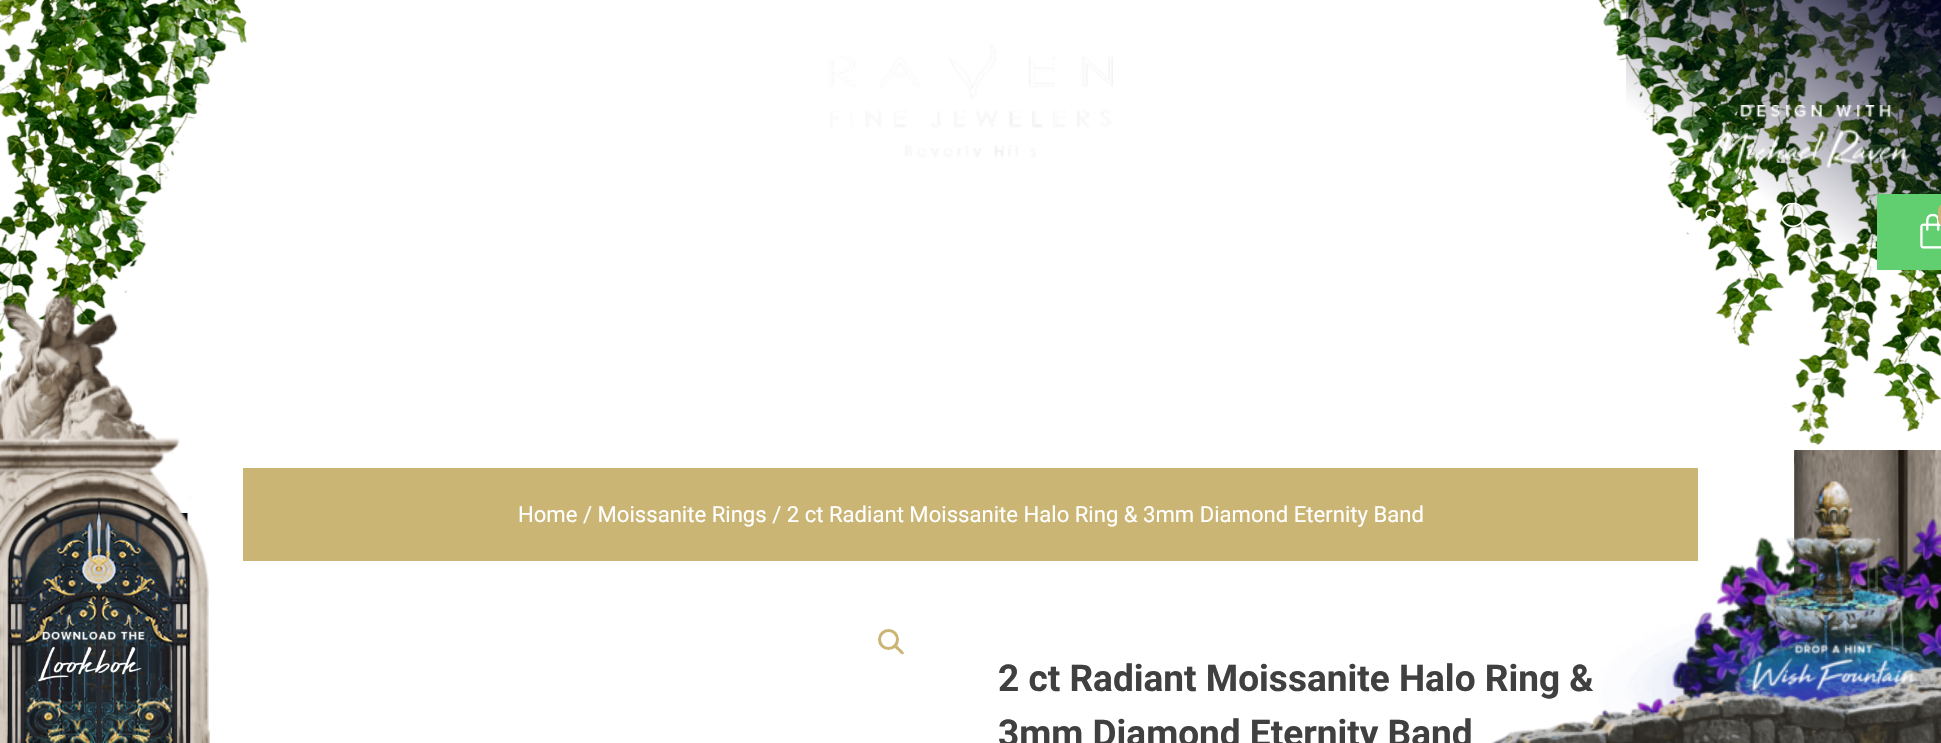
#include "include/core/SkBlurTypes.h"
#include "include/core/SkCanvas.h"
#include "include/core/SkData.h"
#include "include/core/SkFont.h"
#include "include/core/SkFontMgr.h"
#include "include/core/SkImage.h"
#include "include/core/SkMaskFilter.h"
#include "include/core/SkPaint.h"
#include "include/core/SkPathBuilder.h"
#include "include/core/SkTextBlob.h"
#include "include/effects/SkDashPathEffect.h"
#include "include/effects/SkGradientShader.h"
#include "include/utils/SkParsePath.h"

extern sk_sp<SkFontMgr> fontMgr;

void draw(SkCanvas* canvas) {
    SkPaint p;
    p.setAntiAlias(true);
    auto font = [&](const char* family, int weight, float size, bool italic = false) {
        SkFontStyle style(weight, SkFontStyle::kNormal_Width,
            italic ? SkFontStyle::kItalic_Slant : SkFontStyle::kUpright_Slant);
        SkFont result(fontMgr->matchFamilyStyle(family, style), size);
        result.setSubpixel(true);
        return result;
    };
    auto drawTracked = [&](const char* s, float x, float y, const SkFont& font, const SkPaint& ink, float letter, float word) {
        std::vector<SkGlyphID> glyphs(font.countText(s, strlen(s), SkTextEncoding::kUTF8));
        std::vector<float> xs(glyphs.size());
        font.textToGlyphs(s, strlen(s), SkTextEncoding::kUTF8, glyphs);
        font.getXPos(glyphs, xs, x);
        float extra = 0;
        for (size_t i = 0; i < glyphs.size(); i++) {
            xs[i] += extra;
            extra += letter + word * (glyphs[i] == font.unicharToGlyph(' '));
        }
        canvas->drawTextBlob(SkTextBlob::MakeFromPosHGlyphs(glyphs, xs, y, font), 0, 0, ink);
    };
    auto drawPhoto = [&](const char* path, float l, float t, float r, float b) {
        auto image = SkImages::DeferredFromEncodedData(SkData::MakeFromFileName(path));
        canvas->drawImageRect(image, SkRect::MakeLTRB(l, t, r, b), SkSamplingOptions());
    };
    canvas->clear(0xFFFFFFFF);
    drawPhoto("media/1.png", 0, 0, 247, 373);
    drawPhoto("media/3.png", 1791, 0, 1941, 445);
    drawPhoto("media/2.png", 1598, 0, 1866, 359);
    auto font1 = font("Montserrat", 300, 22);
    p.setColor(0xFFFFFFFF);
    drawTracked("S", 1704, 225, font1, p, 4, 0);
    {
        const SkColor colors[] = {0xFF020024, 0x00020024};
        const float stops[] = {0, 0.72f};
        const SkPoint ends[] = {{1919, -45}, {1693, 288}};
        p.setShader(SkGradientShader::MakeLinear(ends, colors, stops, 2, SkTileMode::kClamp));
        p.setAlpha(255);
    }
    canvas->drawRect(SkRect::MakeLTRB(1626, 0, 1941, 243), p);
    drawPhoto("media/4.png", 1701, 105, 1911, 168);
    drawPhoto("media/5.png", 828, 45, 1113, 158);
    drawPhoto("media/6.png", 1781, 203, 1808, 230);
    p.setShader(nullptr);
    p.setColor(0xFF61CE70);
    canvas->drawRect(SkRect::MakeLTRB(1877, 194, 1941, 270), p);
    drawPhoto("media/7.png", 1920, 213, 1941, 249);
    p.setColor(0xFFCAB575);
    canvas->drawRoundRect(SkRect::MakeLTRB(1938, 203, 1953, 227), 12, 12, p);
    drawPhoto("media/8.png", 1794, 450, 1941, 577);
    drawPhoto("media/9.png", 16, 582, 23, 743);
    drawPhoto("media/14.png", 22, 513, 188, 743);
    drawPhoto("media/10.png", 0, 294, 210, 743);
    canvas->drawRect(SkRect::MakeLTRB(243, 468, 1698, 561), p);
    auto font2 = font("Roboto", 700, 37);
    p.setColor(0xFF404040);
    canvas->drawString("2 ct Radiant Moissanite Halo Ring &", 998, 691, font2, p);
    drawPhoto("media/11.png", 1491, 481, 1941, 743);
    drawPhoto("media/12.png", 7, 497, 100, 743);
    drawPhoto("media/13.png", 98, 496, 192, 743);
    drawPhoto("media/15.png", 38, 631, 145, 682);
    auto font3 = font("Roboto", 400, 22.1f);
    p.setColor(0xFFFFFFFF);
    canvas->drawString("Home / Moissanite Rings / 2 ct Radiant Moissanite Halo Ring & 3mm Diamond Eternity Band", 518, 522, font3, p);
    p.setStyle(SkPaint::kStroke_Style);
    p.setStrokeWidth(3);
    p.setColor(0xFFCAB575);
    canvas->drawCircle(888.5f, 639.5f, 9, p);
    p.setStyle(SkPaint::kFill_Style);
    canvas->drawPath(SkPathBuilder().moveTo(895, 645.5f).cubicTo(896.5f, 643.5f, 899, 647.5f, 900, 648.5f).cubicTo(901, 649.5f, 905, 652, 903.5f, 654).cubicTo(901.5f, 655.5f, 899, 651.5f, 898, 650.5f).cubicTo(897, 650, 893, 647, 895, 645.5f).close().detach(), p);
    p.setColor(0xFF404040);
    canvas->drawString("3mm Diamond Eternity Band", 998, 746, font2, p);
}
